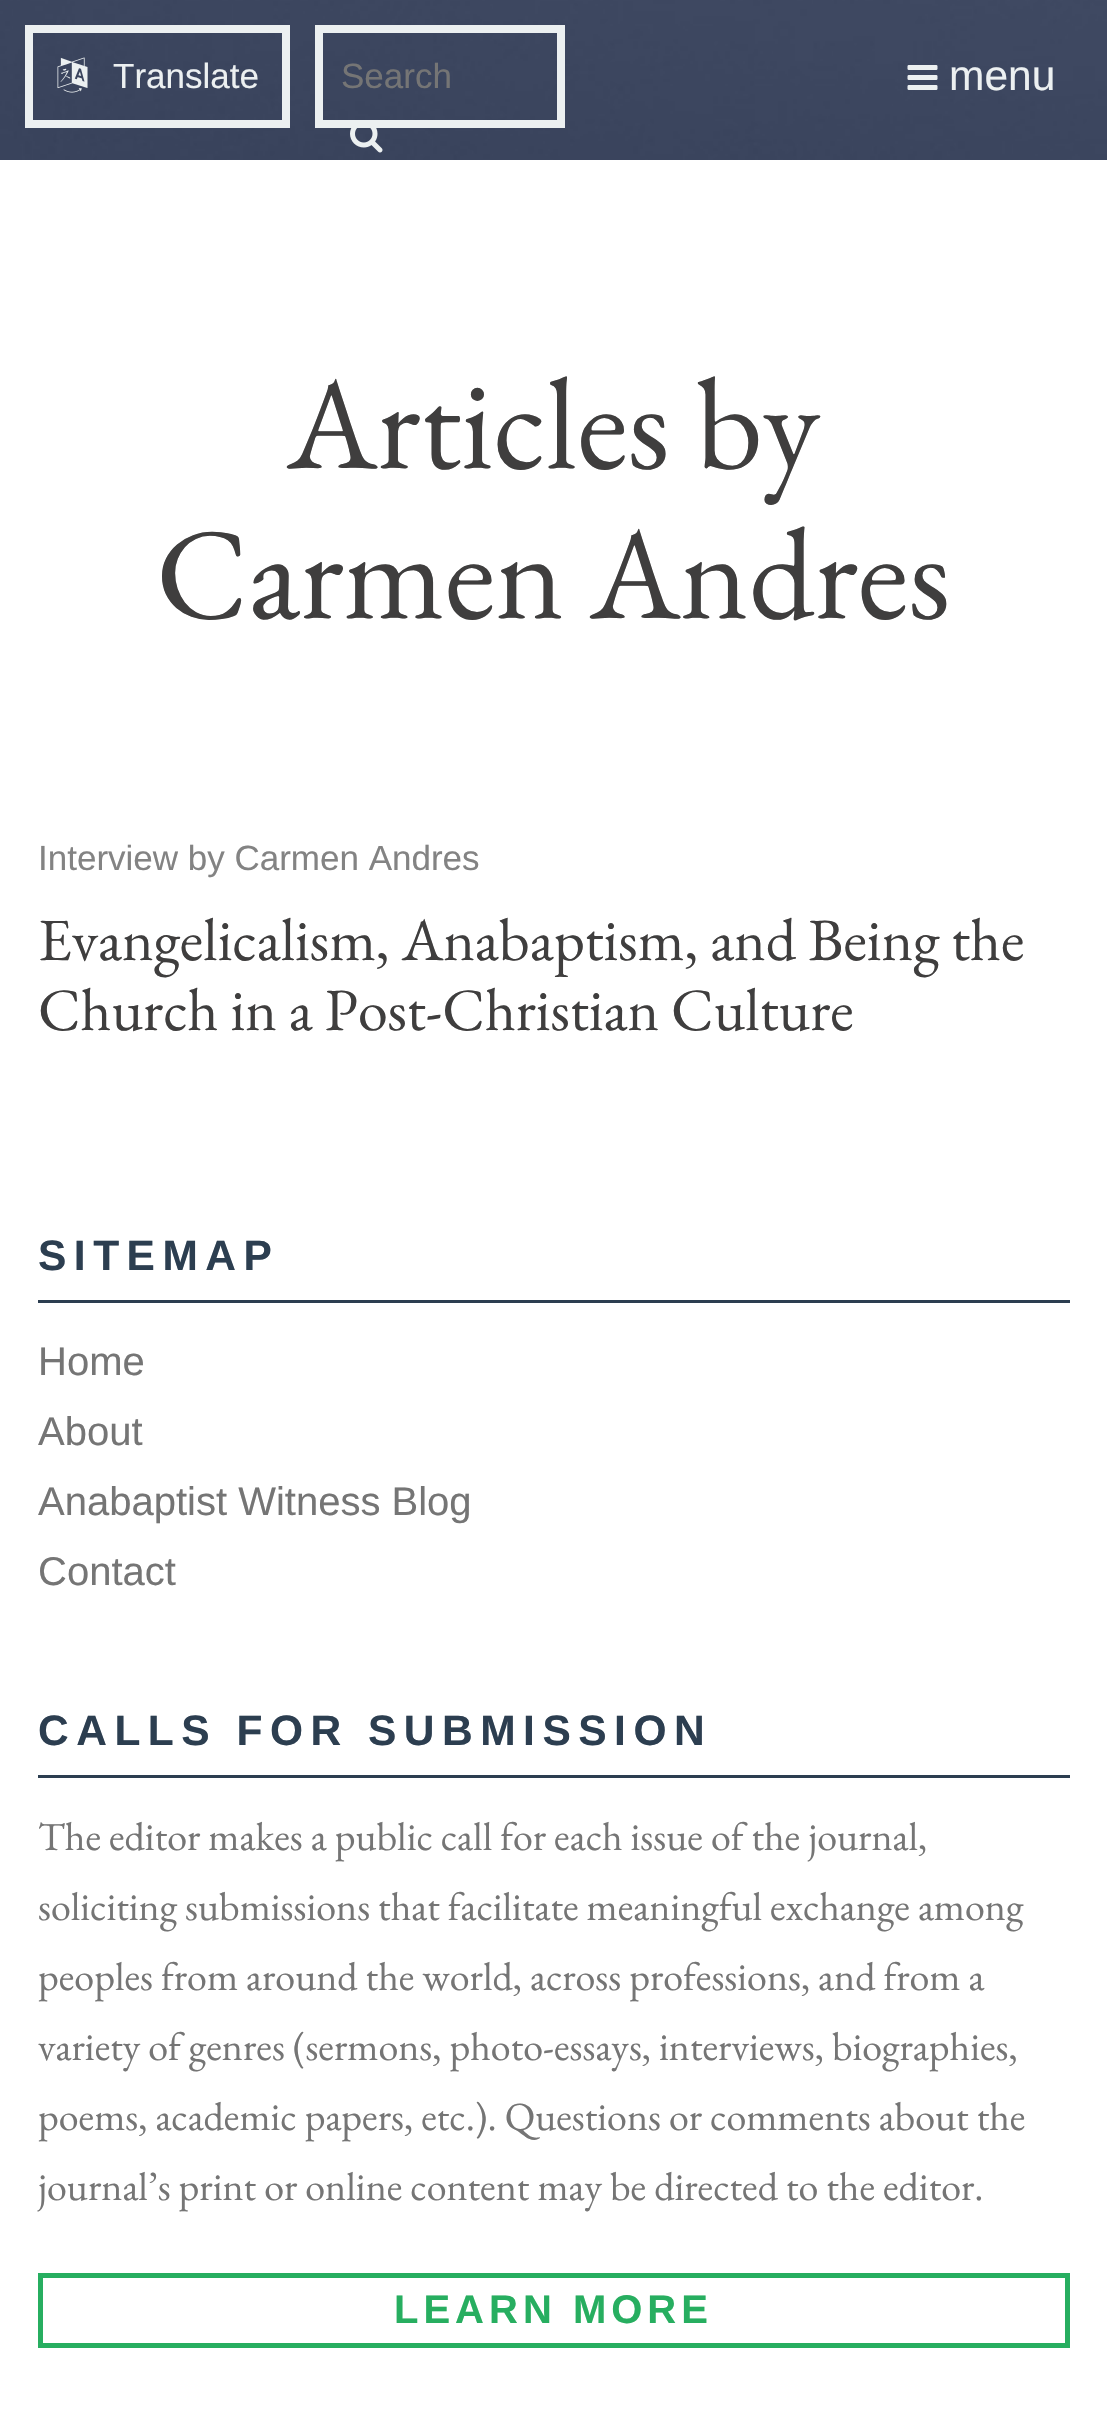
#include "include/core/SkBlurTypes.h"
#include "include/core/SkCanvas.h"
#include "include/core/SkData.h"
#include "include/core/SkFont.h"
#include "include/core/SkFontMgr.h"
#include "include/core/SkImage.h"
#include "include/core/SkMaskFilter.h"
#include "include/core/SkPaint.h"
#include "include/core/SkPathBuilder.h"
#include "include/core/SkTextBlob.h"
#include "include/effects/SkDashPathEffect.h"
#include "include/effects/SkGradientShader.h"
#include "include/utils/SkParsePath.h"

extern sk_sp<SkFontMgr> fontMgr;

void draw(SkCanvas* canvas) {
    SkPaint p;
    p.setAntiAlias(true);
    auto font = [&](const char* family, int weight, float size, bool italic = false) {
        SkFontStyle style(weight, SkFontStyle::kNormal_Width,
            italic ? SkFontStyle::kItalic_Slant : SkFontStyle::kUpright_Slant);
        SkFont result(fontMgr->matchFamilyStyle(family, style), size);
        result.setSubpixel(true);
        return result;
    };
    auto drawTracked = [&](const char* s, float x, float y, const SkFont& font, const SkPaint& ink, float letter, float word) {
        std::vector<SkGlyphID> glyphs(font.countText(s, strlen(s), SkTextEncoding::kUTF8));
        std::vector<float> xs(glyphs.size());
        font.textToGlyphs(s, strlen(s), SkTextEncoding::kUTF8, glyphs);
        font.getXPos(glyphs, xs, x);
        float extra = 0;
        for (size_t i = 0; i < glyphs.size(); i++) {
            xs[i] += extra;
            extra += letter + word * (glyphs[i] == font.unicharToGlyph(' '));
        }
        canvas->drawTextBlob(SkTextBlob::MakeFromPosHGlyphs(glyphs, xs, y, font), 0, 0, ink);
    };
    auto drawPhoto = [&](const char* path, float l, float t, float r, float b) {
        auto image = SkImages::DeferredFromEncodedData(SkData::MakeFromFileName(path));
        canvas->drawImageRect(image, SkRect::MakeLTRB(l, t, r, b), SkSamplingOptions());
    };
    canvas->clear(0xFFFFFFFF);
    drawPhoto("media/1.png", 0, 0, 1107, 160);
    p.setStyle(SkPaint::kStroke_Style);
    p.setStrokeWidth(8);
    p.setColor(0xFFECF0F1);
    canvas->drawRect(SkRect::MakeLTRB(29, 29, 286, 124), p);
    drawPhoto("media/2.png", 57, 57, 88, 93);
    auto font1 = font("Liberation Sans", 400, 35);
    p.setStyle(SkPaint::kFill_Style);
    canvas->drawString("Translate", 113, 88, font1, p);
    p.setStyle(SkPaint::kStroke_Style);
    canvas->drawRect(SkRect::MakeLTRB(319, 29, 561, 124), p);
    p.setStyle(SkPaint::kFill_Style);
    p.setColor(0xFF757575);
    canvas->drawString("Search", 341, 88, font1, p);
    drawPhoto("media/3.png", 350, 128, 383, 153);
    drawPhoto("media/4.png", 907, 65, 938, 90);
    auto font2 = font("Liberation Sans", 400, 42.5f);
    p.setColor(0xFFECF0F1);
    canvas->drawString("menu", 949, 90, font2, p);
    auto font3 = font("EB Garamond", 400, 130);
    p.setColor(0xFF3F3E3E);
    canvas->drawString("Articles by", 287, 468, font3, p);
    canvas->drawString("Carmen Andres", 156, 618, font3, p);
    p.setColor(0xFF838383);
    canvas->drawString("Interview by Carmen Andres", 38, 870, font1, p);
    auto font4 = font("EB Garamond", 400, 60);
    p.setColor(0xFF3F3E3E);
    canvas->drawString("Evangelicalism, Anabaptism, and Being the", 38, 960, font4, p);
    canvas->drawString("Church in a Post-Christian Culture", 38, 1030, font4, p);
    p.setColor(0xFF2C3E50);
    canvas->drawRect(SkRect::MakeLTRB(38, 1300, 1070, 1303), p);
    auto font5 = font("Liberation Sans", 700, 42.5f);
    drawTracked("SITEMAP", 38, 1270, font5, p, 7.5f, 0);
    auto font6 = font("Liberation Sans", 400, 40);
    p.setColor(0xFF757575);
    {
        const struct { const char* s; float x, y; } items[] = {
            {"Home", 38, 1375},
            {"About", 38, 1445},
            {"Anabaptist Witness Blog", 38, 1515},
            {"Contact", 38, 1585},
        };
        for (auto [s, x, y] : items) {
            canvas->drawString(s, x, y, font6, p);
        }
    }
    p.setColor(0xFF2C3E50);
    canvas->drawRect(SkRect::MakeLTRB(38, 1775, 1070, 1778), p);
    drawTracked("CALLS FOR SUBMISSION", 38, 1745, font5, p, 7.5f, 0);
    auto font7 = font("EB Garamond", 400, 40);
    p.setColor(0xFF757575);
    {
        const struct { const char* s; float x, y; } items[] = {
            {"The editor makes a public call for each issue of the journal,", 38, 1850},
            {"soliciting submissions that facilitate meaningful exchange among", 38, 1920},
            {"peoples from around the world, across professions, and from a", 38, 1990},
            {"variety of genres (sermons, photo-essays, interviews, biographies,", 38, 2060},
            {"poems, academic papers, etc.). Questions or comments about the", 38, 2130},
            {"journal’s print or online content may be directed to the editor.", 38, 2200},
        };
        for (auto [s, x, y] : items) {
            canvas->drawString(s, x, y, font7, p);
        }
    }
    p.setStyle(SkPaint::kStroke_Style);
    p.setStrokeWidth(5);
    p.setColor(0xFF27AE60);
    canvas->drawRect(SkRect::MakeLTRB(40.5f, 2275.5f, 1067.5f, 2345.5f), p);
    auto font8 = font("Liberation Sans", 700, 40);
    p.setStyle(SkPaint::kFill_Style);
    drawTracked("LEARN MORE", 394, 2323, font8, p, 5, 0);
}
